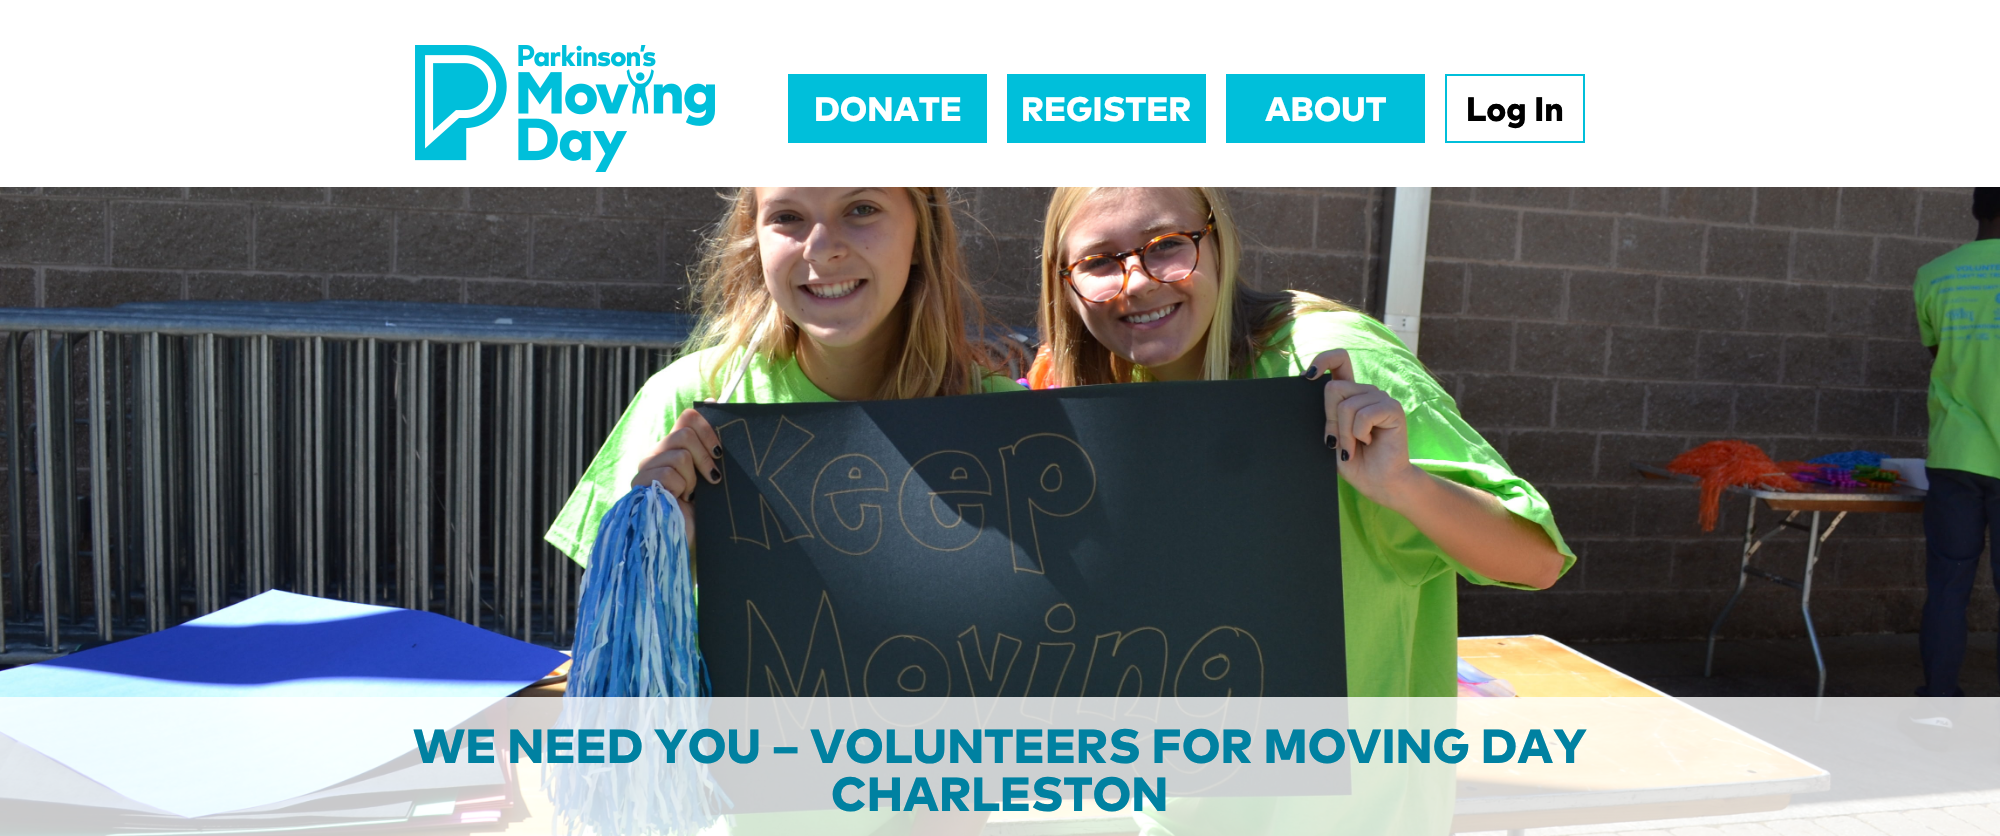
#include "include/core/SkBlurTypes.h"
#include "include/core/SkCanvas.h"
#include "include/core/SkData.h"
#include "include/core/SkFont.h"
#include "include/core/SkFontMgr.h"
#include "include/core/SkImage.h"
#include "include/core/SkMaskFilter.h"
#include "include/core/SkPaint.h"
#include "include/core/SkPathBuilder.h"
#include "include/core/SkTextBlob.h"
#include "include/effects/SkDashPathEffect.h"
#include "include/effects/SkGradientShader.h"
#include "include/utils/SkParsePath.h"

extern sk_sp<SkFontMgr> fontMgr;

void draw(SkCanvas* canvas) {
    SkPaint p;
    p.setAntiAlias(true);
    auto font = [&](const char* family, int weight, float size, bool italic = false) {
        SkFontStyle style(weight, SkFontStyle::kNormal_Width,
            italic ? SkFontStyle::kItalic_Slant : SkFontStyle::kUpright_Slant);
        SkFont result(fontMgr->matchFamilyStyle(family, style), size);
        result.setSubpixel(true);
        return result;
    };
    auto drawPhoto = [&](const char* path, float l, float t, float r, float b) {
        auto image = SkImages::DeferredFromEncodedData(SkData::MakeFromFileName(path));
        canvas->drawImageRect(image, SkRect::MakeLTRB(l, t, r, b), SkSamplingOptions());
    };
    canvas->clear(0xFFFFFFFF);
    drawPhoto("media/1.png", 415, 45, 715, 172);
    p.setColor(0xFF00BFDA);
    canvas->drawRect(SkRect::MakeLTRB(788, 74, 987, 143), p);
    auto font1 = font("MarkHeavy", 900, 34);
    p.setColor(0xFFFFFFFF);
    canvas->drawString("DONATE", 814, 121, font1, p);
    p.setColor(0xFF00BFDA);
    canvas->drawRect(SkRect::MakeLTRB(1007, 74, 1206, 143), p);
    p.setColor(0xFFFFFFFF);
    canvas->drawString("REGISTER", 1021, 121, font1, p);
    p.setColor(0xFF00BFDA);
    canvas->drawRect(SkRect::MakeLTRB(1226, 74, 1425, 143), p);
    p.setColor(0xFFFFFFFF);
    canvas->drawString("ABOUT", 1265, 121, font1, p);
    p.setStyle(SkPaint::kStroke_Style);
    p.setStrokeWidth(2);
    p.setColor(0xFF00BFDA);
    canvas->drawRect(SkRect::MakeLTRB(1446, 75, 1584, 142), p);
    p.setStyle(SkPaint::kFill_Style);
    p.setColor(0xFF000000);
    canvas->drawString("Log In", 1466, 121, font1, p);
    drawPhoto("media/2.png", 0, 187, 2000, 836);
    p.setColor(0xC7FFFFFF);
    canvas->drawRect(SkRect::MakeLTRB(0, 697, 2000, 836), p);
    auto font2 = font("MarkHeavy", 900, 48);
    p.setColor(0xFF0081A1);
    canvas->drawString("WE NEED YOU – VOLUNTEERS FOR MOVING DAY", 413, 763, font2, p);
    canvas->drawString("CHARLESTON", 831, 811, font2, p);
}
